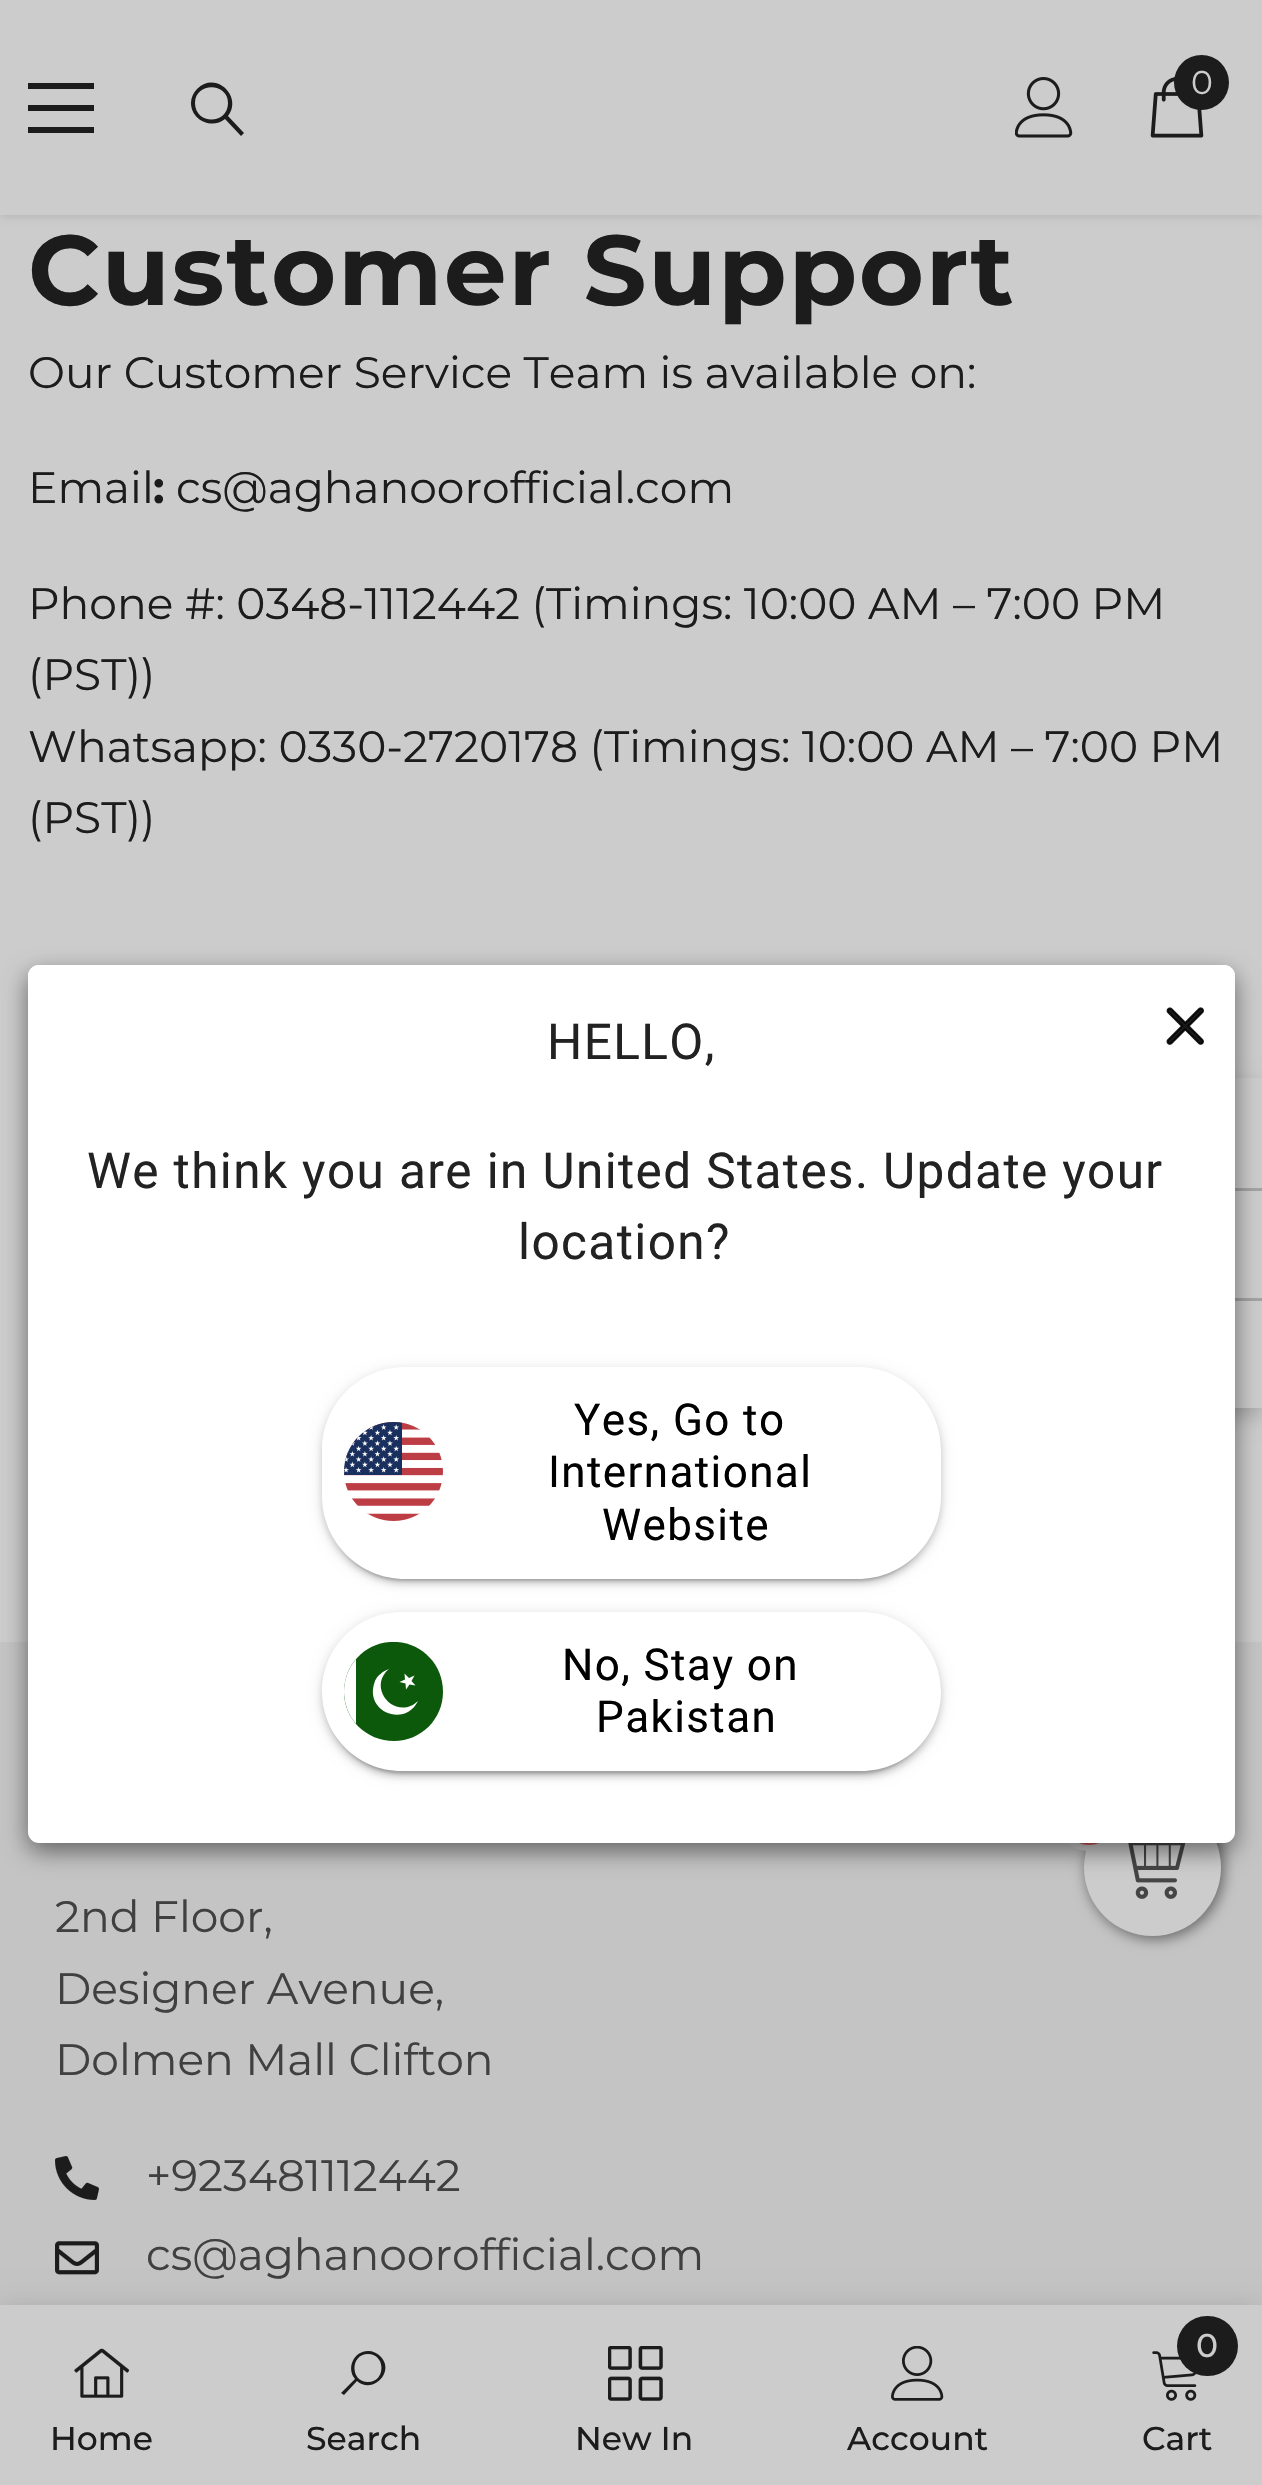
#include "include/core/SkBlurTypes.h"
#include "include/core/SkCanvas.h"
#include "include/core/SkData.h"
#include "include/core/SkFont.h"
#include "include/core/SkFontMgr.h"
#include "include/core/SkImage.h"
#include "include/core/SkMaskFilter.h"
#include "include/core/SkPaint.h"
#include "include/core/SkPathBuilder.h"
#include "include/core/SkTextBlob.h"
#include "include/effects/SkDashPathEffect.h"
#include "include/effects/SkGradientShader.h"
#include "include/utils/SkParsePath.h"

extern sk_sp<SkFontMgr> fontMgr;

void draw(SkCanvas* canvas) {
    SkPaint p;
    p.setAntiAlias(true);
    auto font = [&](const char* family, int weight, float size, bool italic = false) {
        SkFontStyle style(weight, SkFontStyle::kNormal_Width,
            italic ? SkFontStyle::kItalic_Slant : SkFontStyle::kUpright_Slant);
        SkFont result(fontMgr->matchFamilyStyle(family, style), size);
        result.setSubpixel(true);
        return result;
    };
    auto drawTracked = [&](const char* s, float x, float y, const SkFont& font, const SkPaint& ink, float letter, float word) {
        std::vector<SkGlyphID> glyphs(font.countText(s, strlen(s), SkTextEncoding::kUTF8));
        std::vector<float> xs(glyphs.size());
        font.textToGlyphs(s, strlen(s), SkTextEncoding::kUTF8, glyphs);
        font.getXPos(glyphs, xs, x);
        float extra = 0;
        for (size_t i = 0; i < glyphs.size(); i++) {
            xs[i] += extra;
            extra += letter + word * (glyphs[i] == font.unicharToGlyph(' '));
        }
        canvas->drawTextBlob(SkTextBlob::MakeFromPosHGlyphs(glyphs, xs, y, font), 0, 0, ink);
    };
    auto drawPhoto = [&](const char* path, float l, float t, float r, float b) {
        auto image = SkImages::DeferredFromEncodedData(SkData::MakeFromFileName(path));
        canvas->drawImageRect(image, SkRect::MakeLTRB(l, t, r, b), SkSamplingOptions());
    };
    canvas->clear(0xFFCCCCCC);
    p.setColor(0x1A000000);
    p.setMaskFilter(SkMaskFilter::MakeBlur(kNormal_SkBlurStyle, 4));
    canvas->drawRect(SkRect::MakeLTRB(0, 3, 1262, 217), p);
    p.setMaskFilter(nullptr);
    {
        const struct { float l, t, r, b; SkColor color; } items[] = {
            {0, 0, 1262, 215, 0xFFCCCCCC},
            {28, 105, 94, 111, 0xFF1C1C1C},
            {28, 83, 94, 89, 0xFF1C1C1C},
            {28, 127, 94, 133, 0xFF1C1C1C},
        };
        for (auto [l, t, r, b, color] : items) {
            p.setColor(color);
            canvas->drawRect(SkRect::MakeLTRB(l, t, r, b), p);
        }
    }
    canvas->drawPath(SkPathBuilder().moveTo(191, 103).cubicTo(191, 120, 212, 130, 225, 119).lineTo(241, 136).lineTo(244, 133).lineTo(228, 116).cubicTo(243, 97, 216, 70, 197, 89).cubicTo(193, 93, 191, 98, 191, 103).close().moveTo(195, 103).cubicTo(195, 82, 228, 82, 228, 103).cubicTo(228, 125, 195, 125, 195, 103).close().detach(), p);
    drawPhoto("media/1.png", 1015, 77, 1073, 138);
    drawPhoto("media/2.png", 1150, 77, 1204, 138);
    canvas->drawCircle(1201.5f, 82.5f, 27.5f, p);
    auto font1 = font("Montserrat", 400, 33);
    p.setColor(0xFFCCCCCC);
    canvas->drawString("0", 1191, 94, font1, p);
    auto font2 = font("Montserrat", 700, 99);
    p.setColor(0xFF1C1C1C);
    drawTracked("Customer Support", 28, 305, font2, p, 2, 0);
    auto font3 = font("Montserrat", 400, 44);
    canvas->drawString("Our Customer Service Team is available on:", 28, 388, font3, p);
    canvas->drawString("Email", 28, 503, font3, p);
    auto font4 = font("Montserrat", 700, 44);
    canvas->drawString(":", 153, 503, font4, p);
    {
        const struct { const char* s; float x, y; } items[] = {
            {"cs@aghanoorofficial.com", 176, 503},
            {"Phone #: 0348-1112442 (Timings: 10:00 AM – 7:00 PM", 28, 619},
            {"(PST))", 28, 690},
            {"Whatsapp: 0330-2720178 (Timings: 10:00 AM – 7:00 PM", 28, 762},
            {"(PST))", 28, 833},
        };
        for (auto [s, x, y] : items) {
            canvas->drawString(s, x, y, font3, p);
        }
    }
    p.setColor(0xFFC4C4C4);
    canvas->drawRect(SkRect::MakeLTRB(0, 1642, 1262, 2305), p);
    p.setColor(0xFF404040);
    {
        const struct { const char* s; float x, y; } items[] = {
            {"2nd Floor,", 55, 1932},
            {"Designer Avenue,", 55, 2004},
            {"Dolmen Mall Clifton", 55, 2075},
        };
        for (auto [s, x, y] : items) {
            canvas->drawString(s, x, y, font3, p);
        }
    }
    drawPhoto("media/3.png", 55, 2156, 99, 2200);
    canvas->drawString("+923481112442", 146, 2191, font3, p);
    drawPhoto("media/4.png", 55, 2241, 99, 2275);
    canvas->drawString("cs@aghanoorofficial.com", 146, 2270, font3, p);
    p.setColor(0x1F000000);
    p.setMaskFilter(SkMaskFilter::MakeBlur(kNormal_SkBlurStyle, 12.5f));
    canvas->drawRect(SkRect::MakeLTRB(0, 2305, 1262, 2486), p);
    p.setMaskFilter(nullptr);
    p.setColor(0xFFCCCCCC);
    canvas->drawRect(SkRect::MakeLTRB(0, 2305, 1262, 2485), p);
    drawPhoto("media/5.png", 74, 2348, 129, 2398);
    auto font5 = font("Montserrat", 100, 33);
    p.setColor(0xFF1C1C1C);
    canvas->drawString("Home", 50, 2450, font5, p);
    canvas->drawPath(SkPathBuilder().moveTo(368, 2351).cubicTo(354, 2351, 346, 2368, 355, 2379).lineTo(341, 2393).lineTo(344, 2395).lineTo(357, 2381).cubicTo(373, 2395, 396, 2371, 380, 2356).cubicTo(377, 2353, 373, 2351, 368, 2351).close().moveTo(368, 2354).cubicTo(386, 2354, 386, 2382, 368, 2382).cubicTo(350, 2382, 350, 2354, 368, 2354).close().detach(), p);
    canvas->drawString("Search", 306, 2450, font5, p);
    drawPhoto("media/6.png", 608, 2346, 663, 2401);
    canvas->drawString("New In", 575, 2450, font5, p);
    drawPhoto("media/7.png", 891, 2346, 944, 2401);
    canvas->drawString("Account", 847, 2450, font5, p);
    drawPhoto("media/8.png", 1152, 2351, 1197, 2401);
    canvas->drawRoundRect(SkRect::MakeLTRB(1177, 2316, 1238, 2376), 30, 30, p);
    p.setColor(0xFFCCCCCC);
    canvas->drawString("0", 1196, 2357, font5, p);
    p.setColor(0xFF1C1C1C);
    canvas->drawString("Cart", 1142, 2450, font5, p);
    p.setColor(0x33000000);
    p.setMaskFilter(SkMaskFilter::MakeBlur(kNormal_SkBlurStyle, 9.5f));
    canvas->drawRect(SkRect::MakeLTRB(1152, 1086, 1262, 1416), p);
    p.setMaskFilter(nullptr);
    {
        const struct { float l, t, r, b; SkColor color; } items[] = {
            {1235, 1078, 1262, 1408, 0xFFCCCCCC},
            {1235, 1188, 1262, 1191, 0xFFA3A3A3},
            {1235, 1298, 1262, 1301, 0xFFA3A3A3},
        };
        for (auto [l, t, r, b, color] : items) {
            p.setColor(color);
            canvas->drawRect(SkRect::MakeLTRB(l, t, r, b), p);
        }
    }
    p.setColor(0xFF666666);
    p.setMaskFilter(SkMaskFilter::MakeBlur(kNormal_SkBlurStyle, 7));
    canvas->drawRoundRect(SkRect::MakeLTRB(1086, 1801, 1224, 1939), 69, 69, p);
    p.setMaskFilter(nullptr);
    p.setColor(0xFFCCCCCC);
    canvas->drawCircle(1152.5f, 1867.5f, 68.5f, p);
    p.setColor(0xFFCC5656);
    canvas->drawCircle(1089, 1818, 30, p);
    p.setStyle(SkPaint::kStroke_Style);
    p.setStrokeWidth(6);
    p.setColor(0xFFCCCCCC);
    canvas->drawCircle(1089, 1818, 30, p);
    drawPhoto("media/11.png", 1128, 1843, 1186, 1899);
    p.setStyle(SkPaint::kFill_Style);
    p.setColor(0x80000000);
    p.setMaskFilter(SkMaskFilter::MakeBlur(kNormal_SkBlurStyle, 12.5f));
    canvas->drawRoundRect(SkRect::MakeLTRB(28, 974, 1235, 1851), 11, 11, p);
    p.setMaskFilter(nullptr);
    p.setColor(0xFFFFFFFF);
    canvas->drawRoundRect(SkRect::MakeLTRB(28, 965, 1235, 1843), 11, 11, p);
    canvas->drawPath(SkPathBuilder().moveTo(39, 965).lineTo(1224, 965).cubicTo(1230, 965, 1235, 970, 1235, 976).lineTo(1235, 1108).lineTo(28, 1108).lineTo(28, 976).cubicTo(28, 970, 33, 965, 39, 965).close().detach(), p);
    auto font6 = font("Roboto", 400, 49.5f);
    p.setColor(0xFF232223);
    drawTracked("HELLO,", 547, 1059, font6, p, 1.4f, 0);
    drawPhoto("media/9.png", 1166, 1007, 1204, 1045);
    drawTracked("We think you are in United States. Update your", 87, 1188, font6, p, 1.4f, 0);
    drawTracked("location?", 518, 1259, font6, p, 1.4f, 0);
    canvas->save();
    canvas->clipPath(SkPathBuilder(SkPathFillType::kEvenOdd).moveTo(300, 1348).lineTo(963, 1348).lineTo(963, 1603).lineTo(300, 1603).close().moveTo(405, 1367).lineTo(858, 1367).cubicTo(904, 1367, 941, 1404, 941, 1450).lineTo(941, 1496).cubicTo(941, 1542, 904, 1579, 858, 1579).lineTo(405, 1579).cubicTo(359, 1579, 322, 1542, 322, 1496).lineTo(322, 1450).cubicTo(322, 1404, 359, 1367, 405, 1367).close().detach(), true);
    p.setColor(0x1F000000);
    p.setMaskFilter(SkMaskFilter::MakeBlur(kNormal_SkBlurStyle, 7));
    canvas->drawRoundRect(SkRect::MakeLTRB(322, 1370, 941, 1581), 83, 83, p);
    p.setMaskFilter(nullptr);
    canvas->restore();
    canvas->save();
    canvas->clipPath(SkPathBuilder(SkPathFillType::kEvenOdd).moveTo(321, 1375).lineTo(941, 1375).lineTo(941, 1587).lineTo(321, 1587).close().moveTo(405, 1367).lineTo(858, 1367).cubicTo(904, 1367, 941, 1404, 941, 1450).lineTo(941, 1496).cubicTo(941, 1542, 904, 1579, 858, 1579).lineTo(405, 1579).cubicTo(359, 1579, 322, 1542, 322, 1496).lineTo(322, 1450).cubicTo(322, 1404, 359, 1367, 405, 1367).close().detach(), true);
    p.setColor(0x33000000);
    p.setMaskFilter(SkMaskFilter::MakeBlur(kNormal_SkBlurStyle, 1.5f));
    canvas->drawRoundRect(SkRect::MakeLTRB(327, 1381, 935, 1581), 77, 77, p);
    p.setMaskFilter(nullptr);
    canvas->restore();
    canvas->save();
    canvas->clipPath(SkPathBuilder(SkPathFillType::kEvenOdd).moveTo(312, 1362).lineTo(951, 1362).lineTo(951, 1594).lineTo(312, 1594).close().moveTo(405, 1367).lineTo(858, 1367).cubicTo(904, 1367, 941, 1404, 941, 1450).lineTo(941, 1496).cubicTo(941, 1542, 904, 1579, 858, 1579).lineTo(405, 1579).cubicTo(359, 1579, 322, 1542, 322, 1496).lineTo(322, 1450).cubicTo(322, 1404, 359, 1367, 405, 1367).close().detach(), true);
    p.setColor(0x24000000);
    p.setMaskFilter(SkMaskFilter::MakeBlur(kNormal_SkBlurStyle, 3));
    canvas->drawRoundRect(SkRect::MakeLTRB(322, 1372, 941, 1584), 83, 83, p);
    p.setMaskFilter(nullptr);
    canvas->restore();
    drawPhoto("media/10.png", 344, 1422, 443, 1521);
    auto font7 = font("Roboto", 400, 44);
    p.setColor(0xFF000000);
    {
        const struct { const char* s; float x, y; } items[] = {
            {"Yes, Go to", 574, 1435},
            {"International", 548, 1487},
            {"Website", 602, 1540},
        };
        for (auto [s, x, y] : items) {
            drawTracked(s, x, y, font7, p, 1.4f, 0);
        }
    }
    canvas->save();
    canvas->clipPath(SkPathBuilder(SkPathFillType::kEvenOdd).moveTo(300, 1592).lineTo(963, 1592).lineTo(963, 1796).lineTo(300, 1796).close().moveTo(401.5f, 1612).lineTo(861.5f, 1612).cubicTo(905.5f, 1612, 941, 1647.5f, 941, 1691.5f).cubicTo(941, 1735.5f, 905.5f, 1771, 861.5f, 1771).lineTo(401.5f, 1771).cubicTo(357.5f, 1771, 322, 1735.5f, 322, 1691.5f).cubicTo(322, 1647.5f, 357.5f, 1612, 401.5f, 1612).close().detach(), true);
    p.setColor(0x1F000000);
    p.setMaskFilter(SkMaskFilter::MakeBlur(kNormal_SkBlurStyle, 7));
    canvas->drawRoundRect(SkRect::MakeLTRB(322, 1614, 941, 1774), 80, 80, p);
    p.setMaskFilter(nullptr);
    canvas->restore();
    canvas->save();
    canvas->clipPath(SkPathBuilder(SkPathFillType::kEvenOdd).moveTo(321, 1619).lineTo(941, 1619).lineTo(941, 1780).lineTo(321, 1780).close().moveTo(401.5f, 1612).lineTo(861.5f, 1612).cubicTo(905.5f, 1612, 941, 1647.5f, 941, 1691.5f).cubicTo(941, 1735.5f, 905.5f, 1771, 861.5f, 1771).lineTo(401.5f, 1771).cubicTo(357.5f, 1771, 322, 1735.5f, 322, 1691.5f).cubicTo(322, 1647.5f, 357.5f, 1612, 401.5f, 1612).close().detach(), true);
    p.setColor(0x33000000);
    p.setMaskFilter(SkMaskFilter::MakeBlur(kNormal_SkBlurStyle, 1.5f));
    canvas->drawRoundRect(SkRect::MakeLTRB(327, 1625, 935, 1774), 74.5f, 74.5f, p);
    p.setMaskFilter(nullptr);
    canvas->restore();
    canvas->save();
    canvas->clipPath(SkPathBuilder(SkPathFillType::kEvenOdd).moveTo(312, 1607).lineTo(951, 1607).lineTo(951, 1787).lineTo(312, 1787).close().moveTo(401.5f, 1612).lineTo(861.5f, 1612).cubicTo(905.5f, 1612, 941, 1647.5f, 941, 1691.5f).cubicTo(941, 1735.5f, 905.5f, 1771, 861.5f, 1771).lineTo(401.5f, 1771).cubicTo(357.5f, 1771, 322, 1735.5f, 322, 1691.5f).cubicTo(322, 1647.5f, 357.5f, 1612, 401.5f, 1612).close().detach(), true);
    p.setColor(0x24000000);
    p.setMaskFilter(SkMaskFilter::MakeBlur(kNormal_SkBlurStyle, 3));
    canvas->drawRoundRect(SkRect::MakeLTRB(322, 1617, 941, 1777), 80, 80, p);
    p.setMaskFilter(nullptr);
    canvas->restore();
    p.setColor(0xFF0C590B);
    canvas->drawPath(SkPathBuilder().moveTo(397, 1642).lineTo(390, 1642).cubicTo(364, 1644, 344, 1665, 344, 1692).cubicTo(344, 1719, 366, 1741, 394, 1741).cubicTo(421, 1741, 443, 1719, 443, 1692).cubicTo(443, 1665, 423, 1644, 397, 1642).close().detach(), p);
    p.setColor(0xFFFFFFFF);
    canvas->drawPath(SkPathBuilder().moveTo(356, 1659).lineTo(356, 1724).cubicTo(340, 1705, 340, 1678, 356, 1659).close().detach(), p);
    canvas->drawPath(SkPathBuilder(SkPathFillType::kEvenOdd).moveTo(415.5f, 1685.5f).lineTo(409.5f, 1684.5f).lineTo(406, 1689.5f).lineTo(405.5f, 1683.5f).lineTo(399.5f, 1682).lineTo(405, 1679.5f).lineTo(404.5f, 1673.5f).lineTo(409, 1678).lineTo(414.5f, 1675.5f).lineTo(411.5f, 1681).close().detach(), p);
    canvas->drawPath(SkPathBuilder(SkPathFillType::kEvenOdd).moveTo(418, 1701).cubicTo(405, 1728, 363, 1712, 375, 1681).cubicTo(377, 1676, 383, 1671, 389, 1669).cubicTo(366, 1688, 396, 1722, 418, 1701).close().detach(), p);
    p.setColor(0xFF000000);
    drawTracked("No, Stay on", 562, 1680, font7, p, 1.4f, 0);
    drawTracked("Pakistan", 596, 1732, font7, p, 1.4f, 0);
}
